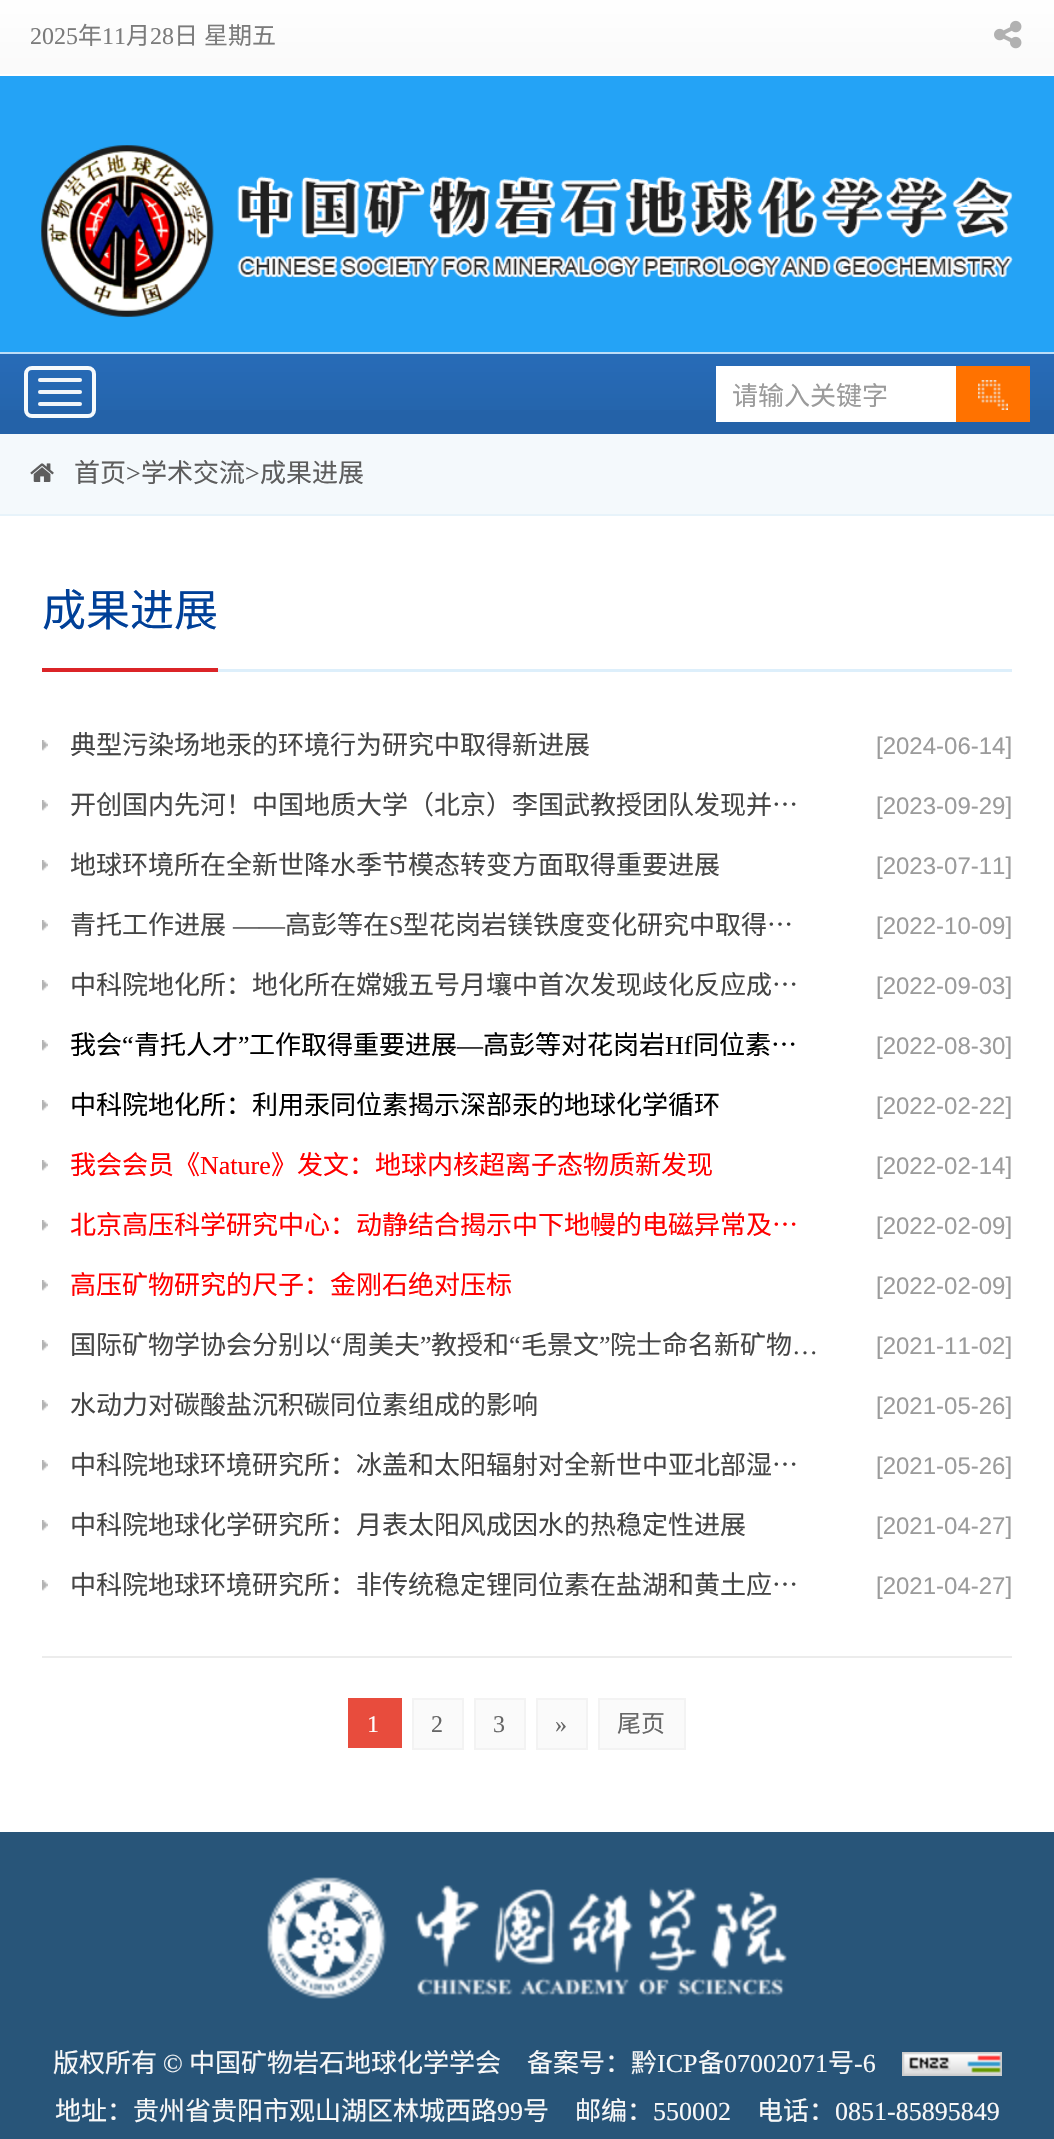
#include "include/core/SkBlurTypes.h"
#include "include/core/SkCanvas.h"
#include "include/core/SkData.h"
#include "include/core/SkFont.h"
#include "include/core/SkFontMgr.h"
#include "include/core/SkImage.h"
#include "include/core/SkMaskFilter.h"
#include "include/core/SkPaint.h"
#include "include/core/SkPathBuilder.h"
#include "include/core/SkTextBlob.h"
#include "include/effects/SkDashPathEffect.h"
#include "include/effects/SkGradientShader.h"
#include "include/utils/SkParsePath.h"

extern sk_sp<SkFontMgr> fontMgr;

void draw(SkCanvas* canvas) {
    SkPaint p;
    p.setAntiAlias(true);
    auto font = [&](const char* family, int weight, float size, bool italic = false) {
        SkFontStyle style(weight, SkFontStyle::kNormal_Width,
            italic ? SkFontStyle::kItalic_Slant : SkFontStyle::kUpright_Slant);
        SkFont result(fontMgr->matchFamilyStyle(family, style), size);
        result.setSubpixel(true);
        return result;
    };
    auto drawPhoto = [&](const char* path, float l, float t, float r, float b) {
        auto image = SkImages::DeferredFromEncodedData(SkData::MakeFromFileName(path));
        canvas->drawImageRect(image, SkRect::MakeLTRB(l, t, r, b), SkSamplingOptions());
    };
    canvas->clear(0xFFFFFFFF);
    drawPhoto("media/1.png", 0, 0, 1054, 74);
    auto font1 = font("Liberation Serif", 400, 24);
    p.setColor(0xFF7B7B7B);
    canvas->drawString("2025", 30, 44, font1, p);
    auto font2 = font("Noto Sans CJK SC", 400, 24);
    canvas->drawString("年", 78, 44, font2, p);
    canvas->drawString("11", 102, 44, font1, p);
    canvas->drawString("月", 126, 44, font2, p);
    canvas->drawString("28", 150, 44, font1, p);
    canvas->drawString("日", 174, 44, font2, p);
    canvas->drawString("星期五", 204, 44, font2, p);
    drawPhoto("media/2.png", 994, 20, 1022, 49);
    p.setColor(0xFF24A3F6);
    canvas->drawRect(SkRect::MakeLTRB(0, 76, 1054, 352), p);
    drawPhoto("media/3.png", 41, 145, 1013, 317);
    p.setColor(0xFF2462A8);
    canvas->drawRect(SkRect::MakeLTRB(0, 410, 1054, 434), p);
    drawPhoto("media/4.png", 0, 354, 1054, 410);
    p.setColor(0xFFBCDDF8);
    canvas->drawRect(SkRect::MakeLTRB(0, 352, 1054, 354), p);
    p.setStyle(SkPaint::kStroke_Style);
    p.setStrokeWidth(4);
    p.setColor(0xFFF6FAFC);
    canvas->drawRoundRect(SkRect::MakeLTRB(26, 368, 94, 416), 6, 6, p);
    p.setStyle(SkPaint::kFill_Style);
    p.setColor(0xFFF3F6F9);
    canvas->drawRoundRect(SkRect::MakeLTRB(38, 378, 82, 382), 2, 2, p);
    canvas->drawRoundRect(SkRect::MakeLTRB(38, 390, 82, 394), 2, 2, p);
    canvas->drawRoundRect(SkRect::MakeLTRB(38, 402, 82, 406), 2, 2, p);
    p.setColor(0xFFFFFFFF);
    canvas->drawRect(SkRect::MakeLTRB(716, 366, 956, 422), p);
    auto font3 = font("Noto Sans CJK SC", 400, 26);
    p.setColor(0xFF9B9B9B);
    canvas->drawString("请输入关键字", 732, 405, font3, p);
    p.setColor(0xFFFF7200);
    canvas->drawRect(SkRect::MakeLTRB(956, 366, 1030, 422), p);
    drawPhoto("media/5.png", 978, 380, 1008, 410);
    p.setColor(0xFFF4F9FC);
    canvas->drawRect(SkRect::MakeLTRB(0, 434, 1054, 514), p);
    p.setColor(0xFFE7F3FA);
    canvas->drawRect(SkRect::MakeLTRB(0, 514, 1054, 516), p);
    drawPhoto("media/6.png", 30, 463, 54, 482);
    p.setColor(0xFF5D5D5D);
    canvas->drawString("首页", 74, 482, font3, p);
    auto font4 = font("Liberation Serif", 400, 26);
    canvas->drawString(">", 126, 482, font4, p);
    canvas->drawString("学术交流", 141, 482, font3, p);
    canvas->drawString(">", 245, 482, font4, p);
    canvas->drawString("成果进展", 260, 482, font3, p);
    p.setColor(0xFFDDEFFB);
    canvas->drawRect(SkRect::MakeLTRB(218, 669, 1012, 672), p);
    p.setColor(0xFFDB2427);
    canvas->drawRect(SkRect::MakeLTRB(42, 668, 218, 672), p);
    auto font5 = font("Noto Sans CJK SC", 400, 44);
    p.setColor(0xFF004098);
    canvas->drawString("成果进展", 42, 626, font5, p);
    drawPhoto("media/7.png", 42, 740, 48, 751);
    p.setColor(0xFF454545);
    canvas->drawString("典型污染场地汞的环境行为研究中取得新进展", 70, 754, font3, p);
    auto font6 = font("Liberation Sans", 400, 24);
    p.setColor(0xFF9B9B9B);
    canvas->drawString("[2024-06-14]", 876, 754, font6, p);
    drawPhoto("media/7.png", 42, 800, 48, 811);
    p.setColor(0xFF454545);
    canvas->drawString("开创国内先河！中国地质大学（北京）李国武教授团队发现并…", 70, 814, font3, p);
    p.setColor(0xFF9B9B9B);
    canvas->drawString("[2023-09-29]", 876, 814, font6, p);
    drawPhoto("media/7.png", 42, 860, 48, 871);
    p.setColor(0xFF454545);
    canvas->drawString("地球环境所在全新世降水季节模态转变方面取得重要进展", 70, 874, font3, p);
    p.setColor(0xFF9B9B9B);
    canvas->drawString("[2023-07-11]", 876, 874, font6, p);
    drawPhoto("media/7.png", 42, 920, 48, 931);
    p.setColor(0xFF454545);
    canvas->drawString("青托工作进展", 70, 934, font3, p);
    canvas->drawString("——", 233, 934, font4, p);
    canvas->drawString("高彭等在", 285, 934, font3, p);
    canvas->drawString("S", 389, 934, font4, p);
    canvas->drawString("型花岗岩镁铁度变化研究中取得…", 403, 934, font3, p);
    p.setColor(0xFF9B9B9B);
    canvas->drawString("[2022-10-09]", 876, 934, font6, p);
    drawPhoto("media/7.png", 42, 980, 48, 991);
    p.setColor(0xFF454545);
    canvas->drawString("中科院地化所：地化所在嫦娥五号月壤中首次发现歧化反应成…", 70, 994, font3, p);
    p.setColor(0xFF9B9B9B);
    canvas->drawString("[2022-09-03]", 876, 994, font6, p);
    drawPhoto("media/7.png", 42, 1040, 48, 1051);
    p.setColor(0xFF000000);
    canvas->drawString("我会", 70, 1054, font3, p);
    canvas->drawString("“", 122, 1054, font4, p);
    canvas->drawString("青托人才", 134, 1054, font3, p);
    canvas->drawString("”", 238, 1054, font4, p);
    canvas->drawString("工作取得重要进展", 249, 1054, font3, p);
    canvas->drawString("高彭等对花岗岩", 483, 1054, font3, p);
    canvas->drawString("Hf", 665, 1054, font4, p);
    canvas->drawString("同位素…", 693, 1054, font3, p);
    canvas->drawString("—", 457, 1054, font4, p);
    p.setColor(0xFF9B9B9B);
    canvas->drawString("[2022-08-30]", 876, 1054, font6, p);
    drawPhoto("media/7.png", 42, 1100, 48, 1111);
    p.setColor(0xFF000000);
    canvas->drawString("中科院地化所：利用汞同位素揭示深部汞的地球化学循环", 70, 1114, font3, p);
    p.setColor(0xFF9B9B9B);
    canvas->drawString("[2022-02-22]", 876, 1114, font6, p);
    drawPhoto("media/7.png", 42, 1160, 48, 1171);
    p.setColor(0xFFFF0000);
    canvas->drawString("我会会员《", 70, 1174, font3, p);
    canvas->drawString("Nature", 200, 1174, font4, p);
    canvas->drawString("》发文：地球内核超离子态物质新发现", 271, 1174, font3, p);
    p.setColor(0xFF9B9B9B);
    canvas->drawString("[2022-02-14]", 876, 1174, font6, p);
    drawPhoto("media/7.png", 42, 1220, 48, 1231);
    p.setColor(0xFFFF0000);
    canvas->drawString("北京高压科学研究中心：动静结合揭示中下地幔的电磁异常及…", 70, 1234, font3, p);
    p.setColor(0xFF9B9B9B);
    canvas->drawString("[2022-02-09]", 876, 1234, font6, p);
    drawPhoto("media/7.png", 42, 1280, 48, 1291);
    p.setColor(0xFFFF0000);
    canvas->drawString("高压矿物研究的尺子：金刚石绝对压标", 70, 1294, font3, p);
    p.setColor(0xFF9B9B9B);
    canvas->drawString("[2022-02-09]", 876, 1294, font6, p);
    drawPhoto("media/7.png", 42, 1340, 48, 1351);
    p.setColor(0xFF454545);
    canvas->drawString("国际矿物学协会分别以", 70, 1354, font3, p);
    canvas->drawString("“", 330, 1354, font4, p);
    canvas->drawString("周美夫", 342, 1354, font3, p);
    canvas->drawString("”", 420, 1354, font4, p);
    canvas->drawString("教授和", 431, 1354, font3, p);
    canvas->drawString("“", 509, 1354, font4, p);
    canvas->drawString("毛景文", 521, 1354, font3, p);
    canvas->drawString("”", 599, 1354, font4, p);
    canvas->drawString("院士命名新矿物", 610, 1354, font3, p);
    canvas->drawString("…", 792, 1354, font4, p);
    p.setColor(0xFF9B9B9B);
    canvas->drawString("[2021-11-02]", 876, 1354, font6, p);
    drawPhoto("media/7.png", 42, 1400, 48, 1411);
    p.setColor(0xFF454545);
    canvas->drawString("水动力对碳酸盐沉积碳同位素组成的影响", 70, 1414, font3, p);
    p.setColor(0xFF9B9B9B);
    canvas->drawString("[2021-05-26]", 876, 1414, font6, p);
    drawPhoto("media/7.png", 42, 1460, 48, 1471);
    p.setColor(0xFF454545);
    canvas->drawString("中科院地球环境研究所：冰盖和太阳辐射对全新世中亚北部湿…", 70, 1474, font3, p);
    p.setColor(0xFF9B9B9B);
    canvas->drawString("[2021-05-26]", 876, 1474, font6, p);
    drawPhoto("media/7.png", 42, 1520, 48, 1531);
    p.setColor(0xFF454545);
    canvas->drawString("中科院地球化学研究所：月表太阳风成因水的热稳定性进展", 70, 1534, font3, p);
    p.setColor(0xFF9B9B9B);
    canvas->drawString("[2021-04-27]", 876, 1534, font6, p);
    drawPhoto("media/7.png", 42, 1580, 48, 1591);
    p.setColor(0xFF454545);
    canvas->drawString("中科院地球环境研究所：非传统稳定锂同位素在盐湖和黄土应…", 70, 1594, font3, p);
    p.setColor(0xFF9B9B9B);
    canvas->drawString("[2021-04-27]", 876, 1594, font6, p);
    p.setColor(0xFFECECEC);
    canvas->drawRect(SkRect::MakeLTRB(42, 1656, 1012, 1658), p);
    p.setColor(0xFFE84C3D);
    canvas->drawRect(SkRect::MakeLTRB(348, 1698, 402, 1748), p);
    p.setColor(0xFFFFFFFF);
    canvas->drawString("1", 367, 1732, font1, p);
    p.setColor(0xFFFAFAFA);
    canvas->drawRect(SkRect::MakeLTRB(413, 1699, 463, 1749), p);
    p.setStyle(SkPaint::kStroke_Style);
    p.setStrokeWidth(2);
    p.setColor(0xFFF3F3F3);
    canvas->drawRect(SkRect::MakeLTRB(413, 1699, 463, 1749), p);
    p.setStyle(SkPaint::kFill_Style);
    p.setColor(0xFF666666);
    canvas->drawString("2", 431, 1732, font1, p);
    p.setColor(0xFFFAFAFA);
    canvas->drawRect(SkRect::MakeLTRB(475, 1699, 525, 1749), p);
    p.setStyle(SkPaint::kStroke_Style);
    p.setColor(0xFFF3F3F3);
    canvas->drawRect(SkRect::MakeLTRB(475, 1699, 525, 1749), p);
    p.setStyle(SkPaint::kFill_Style);
    p.setColor(0xFF666666);
    canvas->drawString("3", 493, 1732, font1, p);
    p.setColor(0xFFFAFAFA);
    canvas->drawRect(SkRect::MakeLTRB(537, 1699, 587, 1749), p);
    p.setStyle(SkPaint::kStroke_Style);
    p.setColor(0xFFF3F3F3);
    canvas->drawRect(SkRect::MakeLTRB(537, 1699, 587, 1749), p);
    p.setStyle(SkPaint::kFill_Style);
    p.setColor(0xFF666666);
    canvas->drawString("»", 555, 1732, font1, p);
    p.setColor(0xFFFAFAFA);
    canvas->drawRect(SkRect::MakeLTRB(599, 1699, 685, 1749), p);
    p.setStyle(SkPaint::kStroke_Style);
    p.setColor(0xFFF3F3F3);
    canvas->drawRect(SkRect::MakeLTRB(599, 1699, 685, 1749), p);
    p.setStyle(SkPaint::kFill_Style);
    p.setColor(0xFF666666);
    canvas->drawString("尾页", 617, 1732, font2, p);
    p.setColor(0xFF285579);
    canvas->drawRect(SkRect::MakeLTRB(0, 1832, 1054, 2139), p);
    drawPhoto("media/8.png", 267, 1877, 787, 1999);
    p.setColor(0xFFF8F8F8);
    canvas->drawString("版权所有", 53, 2072, font3, p);
    canvas->drawString("©", 163, 2072, font4, p);
    canvas->drawString("中国矿物岩石地球化学学会　备案号：黔", 189, 2072, font3, p);
    canvas->drawString("ICP", 657, 2072, font4, p);
    canvas->drawString("备", 698, 2072, font3, p);
    canvas->drawString("07002071", 724, 2072, font4, p);
    canvas->drawString("号", 828, 2072, font3, p);
    canvas->drawString("-6", 854, 2072, font4, p);
    drawPhoto("media/9.png", 902, 2052, 1002, 2076);
    canvas->drawString("地址：贵州省贵阳市观山湖区林城西路", 55, 2120, font3, p);
    canvas->drawString("99", 497, 2120, font4, p);
    canvas->drawString("号　邮编：", 523, 2120, font3, p);
    canvas->drawString("550002", 653, 2120, font4, p);
    canvas->drawString("电话：", 757, 2120, font3, p);
    canvas->drawString("0851-85895849", 835, 2120, font4, p);
}
